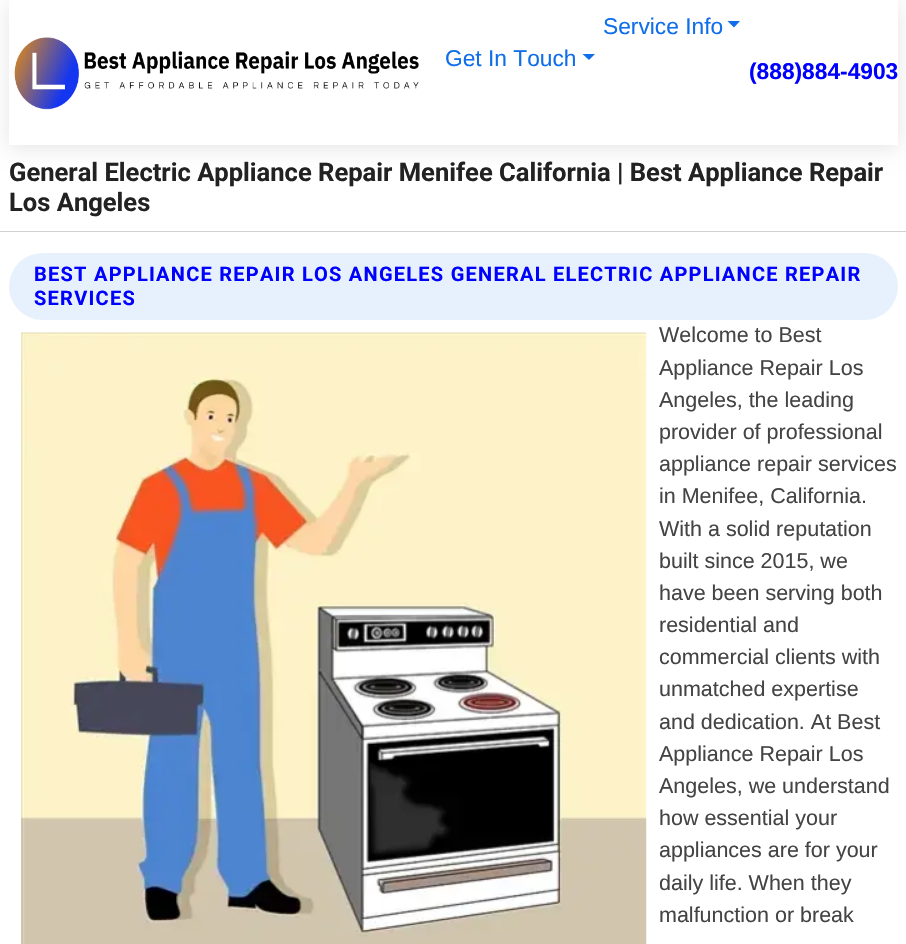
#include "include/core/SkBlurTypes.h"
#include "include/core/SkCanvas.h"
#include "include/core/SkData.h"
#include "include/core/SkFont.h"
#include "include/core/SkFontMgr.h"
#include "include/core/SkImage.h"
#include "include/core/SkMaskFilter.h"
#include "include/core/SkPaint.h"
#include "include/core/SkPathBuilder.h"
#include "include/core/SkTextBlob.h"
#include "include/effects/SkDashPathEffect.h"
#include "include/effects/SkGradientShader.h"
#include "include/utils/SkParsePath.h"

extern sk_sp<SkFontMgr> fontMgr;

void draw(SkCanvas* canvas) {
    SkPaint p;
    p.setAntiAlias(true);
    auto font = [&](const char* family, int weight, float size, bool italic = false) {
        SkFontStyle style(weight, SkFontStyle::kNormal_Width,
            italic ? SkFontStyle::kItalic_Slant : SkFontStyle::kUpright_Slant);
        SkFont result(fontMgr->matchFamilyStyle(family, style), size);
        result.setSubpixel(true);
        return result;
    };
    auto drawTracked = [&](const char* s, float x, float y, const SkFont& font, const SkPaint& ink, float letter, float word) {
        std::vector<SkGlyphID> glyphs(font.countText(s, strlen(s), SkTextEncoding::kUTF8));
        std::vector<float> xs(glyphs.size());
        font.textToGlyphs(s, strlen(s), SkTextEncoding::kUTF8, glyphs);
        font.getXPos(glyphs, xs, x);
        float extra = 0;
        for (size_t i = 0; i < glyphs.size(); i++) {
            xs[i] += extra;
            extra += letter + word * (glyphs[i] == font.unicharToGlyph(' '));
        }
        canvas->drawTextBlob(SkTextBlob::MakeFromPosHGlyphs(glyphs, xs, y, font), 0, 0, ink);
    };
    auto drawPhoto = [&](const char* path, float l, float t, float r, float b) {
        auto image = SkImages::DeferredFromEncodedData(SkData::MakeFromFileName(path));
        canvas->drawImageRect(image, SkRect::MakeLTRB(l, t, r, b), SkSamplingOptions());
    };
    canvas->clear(0xFFFFFFFF);
    p.setColor(0x1A000000);
    p.setMaskFilter(SkMaskFilter::MakeBlur(kNormal_SkBlurStyle, 9.5f));
    canvas->drawRect(SkRect::MakeLTRB(9, 3, 898, 148), p);
    p.setMaskFilter(nullptr);
    p.setColor(0xFFFFFFFF);
    canvas->drawRect(SkRect::MakeLTRB(9, 0, 898, 145), p);
    drawPhoto("media/1.png", 14, 37, 419, 110);
    auto font1 = font("Liberation Sans", 400, 22.75f);
    p.setColor(0xFF106EEA);
    canvas->drawString("Service Info", 603, 34, font1, p);
    canvas->drawPath(SkPathBuilder().moveTo(727.5f, 21).lineTo(740, 21).lineTo(734, 27.5f).close().detach(), p);
    canvas->drawString("Get In Touch", 445, 66, font1, p);
    canvas->drawPath(SkPathBuilder().moveTo(582.5f, 54).lineTo(595, 54).lineTo(589, 60).close().detach(), p);
    auto font2 = font("Liberation Sans", 700, 22.75f);
    p.setColor(0xFF0000FF);
    canvas->drawString("(888)884-4903", 749, 79, font2, p);
    auto font3 = font("Roboto", 700, 25.55f);
    p.setColor(0xFF222222);
    canvas->drawString("General Electric Appliance Repair Menifee California | Best Appliance Repair", 9, 181, font3, p);
    canvas->drawString("Los Angeles", 9, 211, font3, p);
    p.setColor(0xFFD0D0D0);
    canvas->drawRect(SkRect::MakeLTRB(0, 231, 906, 232), p);
    p.setColor(0xFFE7F1FD);
    canvas->drawRoundRect(SkRect::MakeLTRB(9, 253, 898, 320), 33.5f, 33.5f, p);
    auto font4 = font("Roboto", 700, 20);
    p.setColor(0xFF0000FF);
    drawTracked("BEST APPLIANCE REPAIR LOS ANGELES GENERAL ELECTRIC APPLIANCE REPAIR", 34, 281, font4, p, 1.25f, 0);
    drawTracked("SERVICES", 34, 305, font4, p, 1.25f, 0);
    drawPhoto("media/2.png", 21, 332, 647, 944);
    auto font5 = font("Liberation Sans", 400, 21.5f);
    p.setColor(0xFF444444);
    {
        const struct { const char* s; float x, y; } items[] = {
            {"Welcome to Best", 659, 342},
            {"Appliance Repair Los", 659, 375},
            {"Angeles, the leading", 659, 407},
            {"provider of professional", 659, 439},
            {"appliance repair services", 659, 471},
            {"in Menifee, California.", 659, 503},
            {"With a solid reputation", 659, 536},
            {"built since 2015, we", 659, 568},
            {"have been serving both", 659, 600},
            {"residential and", 659, 632},
            {"commercial clients with", 659, 664},
            {"unmatched expertise", 659, 696},
            {"and dedication. At Best", 659, 729},
            {"Appliance Repair Los", 659, 761},
            {"Angeles, we understand", 659, 793},
            {"how essential your", 659, 825},
            {"appliances are for your", 659, 857},
            {"daily life. When they", 659, 890},
            {"malfunction or break", 659, 922},
        };
        for (auto [s, x, y] : items) {
            canvas->drawString(s, x, y, font5, p);
        }
    }
}
